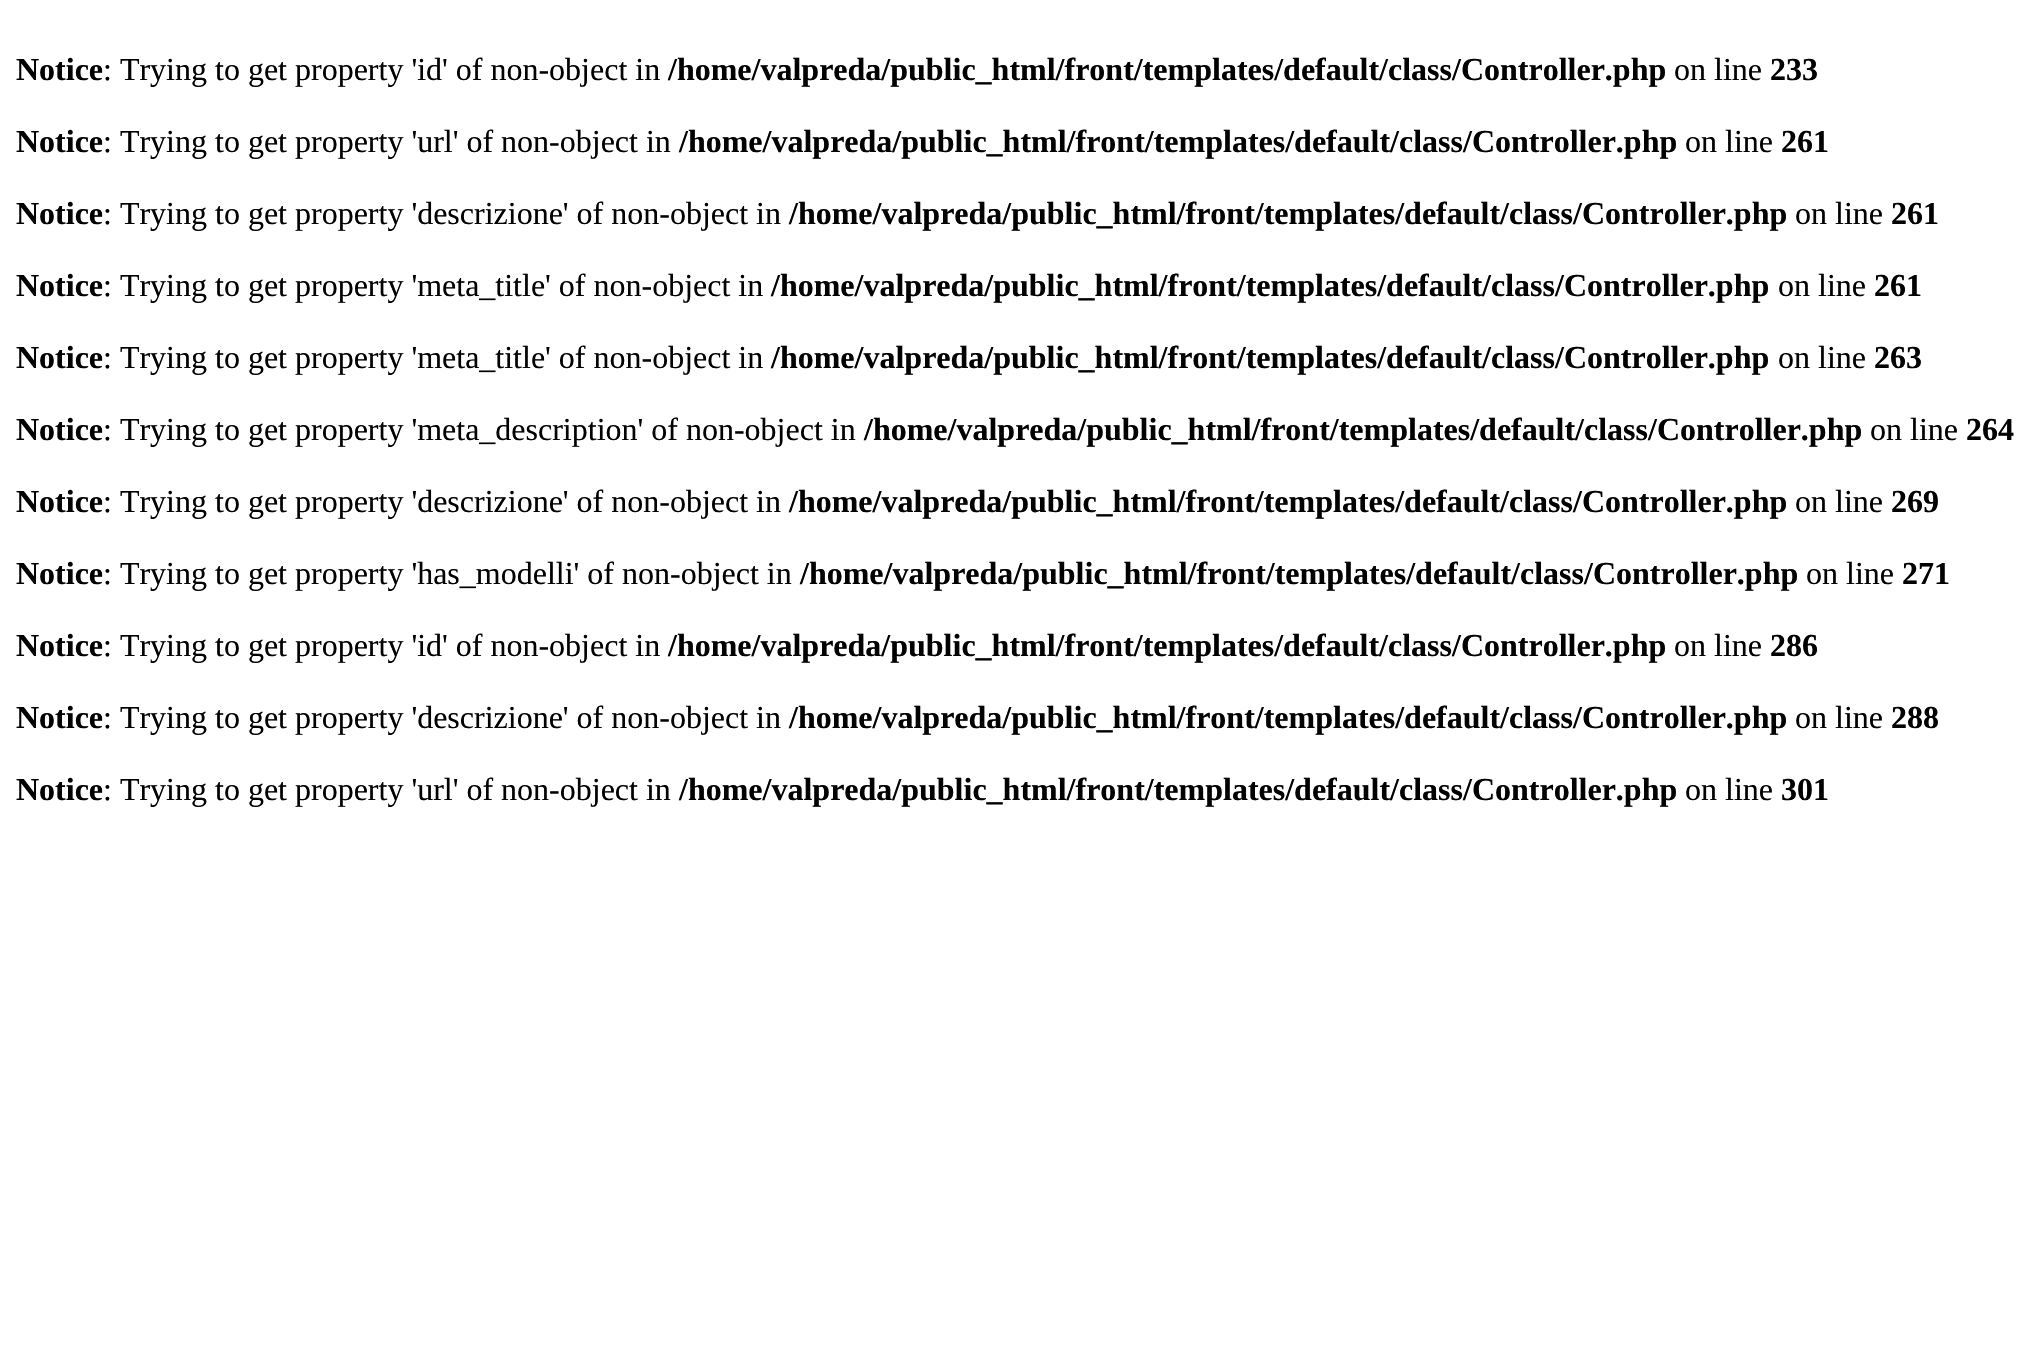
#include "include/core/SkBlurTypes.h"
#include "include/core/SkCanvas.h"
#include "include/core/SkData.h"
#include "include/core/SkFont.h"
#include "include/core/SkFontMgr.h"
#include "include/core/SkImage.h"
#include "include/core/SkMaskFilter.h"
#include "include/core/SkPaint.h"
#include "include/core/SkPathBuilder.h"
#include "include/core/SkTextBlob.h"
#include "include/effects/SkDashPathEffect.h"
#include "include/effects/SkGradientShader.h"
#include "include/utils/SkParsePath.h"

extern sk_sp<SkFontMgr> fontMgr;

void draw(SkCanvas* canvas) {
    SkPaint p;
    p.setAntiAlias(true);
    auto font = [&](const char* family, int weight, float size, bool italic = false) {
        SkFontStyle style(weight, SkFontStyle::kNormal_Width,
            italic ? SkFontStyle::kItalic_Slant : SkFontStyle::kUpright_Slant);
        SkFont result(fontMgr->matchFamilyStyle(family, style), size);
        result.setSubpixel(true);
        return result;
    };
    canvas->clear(0xFFFFFFFF);
    auto font1 = font("Liberation Serif", 700, 32);
    p.setColor(0xFF000000);
    canvas->drawString("Notice", 16, 80, font1, p);
    auto font2 = font("Liberation Serif", 400, 32);
    canvas->drawString(": Trying to get property 'id' of non-object in", 103, 80, font2, p);
    canvas->drawString("/home/valpreda/public_html/front/templates/default/class/Controller.php", 668, 80, font1, p);
    canvas->drawString("on line", 1674, 80, font2, p);
    canvas->drawString("233", 1770, 80, font1, p);
    canvas->drawString("Notice", 16, 152, font1, p);
    canvas->drawString(": Trying to get property 'url' of non-object in", 103, 152, font2, p);
    canvas->drawString("/home/valpreda/public_html/front/templates/default/class/Controller.php", 679, 152, font1, p);
    canvas->drawString("on line", 1685, 152, font2, p);
    canvas->drawString("261", 1781, 152, font1, p);
    canvas->drawString("Notice", 16, 224, font1, p);
    canvas->drawString(": Trying to get property 'descrizione' of non-object in", 103, 224, font2, p);
    canvas->drawString("/home/valpreda/public_html/front/templates/default/class/Controller.php", 789, 224, font1, p);
    canvas->drawString("on line", 1795, 224, font2, p);
    canvas->drawString("261", 1891, 224, font1, p);
    canvas->drawString("Notice", 16, 296, font1, p);
    canvas->drawString(": Trying to get property 'meta_title' of non-object in", 103, 296, font2, p);
    canvas->drawString("/home/valpreda/public_html/front/templates/default/class/Controller.php", 771, 296, font1, p);
    canvas->drawString("on line", 1778, 296, font2, p);
    canvas->drawString("261", 1874, 296, font1, p);
    canvas->drawString("Notice", 16, 368, font1, p);
    canvas->drawString(": Trying to get property 'meta_title' of non-object in", 103, 368, font2, p);
    canvas->drawString("/home/valpreda/public_html/front/templates/default/class/Controller.php", 771, 368, font1, p);
    canvas->drawString("on line", 1778, 368, font2, p);
    canvas->drawString("263", 1874, 368, font1, p);
    canvas->drawString("Notice", 16, 440, font1, p);
    canvas->drawString(": Trying to get property 'meta_description' of non-object in", 103, 440, font2, p);
    canvas->drawString("/home/valpreda/public_html/front/templates/default/class/Controller.php", 864, 440, font1, p);
    canvas->drawString("on line", 1870, 440, font2, p);
    canvas->drawString("264", 1966, 440, font1, p);
    canvas->drawString("Notice", 16, 512, font1, p);
    canvas->drawString(": Trying to get property 'descrizione' of non-object in", 103, 512, font2, p);
    canvas->drawString("/home/valpreda/public_html/front/templates/default/class/Controller.php", 789, 512, font1, p);
    canvas->drawString("on line", 1795, 512, font2, p);
    canvas->drawString("269", 1891, 512, font1, p);
    canvas->drawString("Notice", 16, 584, font1, p);
    canvas->drawString(": Trying to get property 'has_modelli' of non-object in", 103, 584, font2, p);
    canvas->drawString("/home/valpreda/public_html/front/templates/default/class/Controller.php", 800, 584, font1, p);
    canvas->drawString("on line", 1806, 584, font2, p);
    canvas->drawString("271", 1902, 584, font1, p);
    canvas->drawString("Notice", 16, 656, font1, p);
    canvas->drawString(": Trying to get property 'id' of non-object in", 103, 656, font2, p);
    canvas->drawString("/home/valpreda/public_html/front/templates/default/class/Controller.php", 668, 656, font1, p);
    canvas->drawString("on line", 1674, 656, font2, p);
    canvas->drawString("286", 1770, 656, font1, p);
    canvas->drawString("Notice", 16, 728, font1, p);
    canvas->drawString(": Trying to get property 'descrizione' of non-object in", 103, 728, font2, p);
    canvas->drawString("/home/valpreda/public_html/front/templates/default/class/Controller.php", 789, 728, font1, p);
    canvas->drawString("on line", 1795, 728, font2, p);
    canvas->drawString("288", 1891, 728, font1, p);
    canvas->drawString("Notice", 16, 800, font1, p);
    canvas->drawString(": Trying to get property 'url' of non-object in", 103, 800, font2, p);
    canvas->drawString("/home/valpreda/public_html/front/templates/default/class/Controller.php", 679, 800, font1, p);
    canvas->drawString("on line", 1685, 800, font2, p);
    canvas->drawString("301", 1781, 800, font1, p);
}
